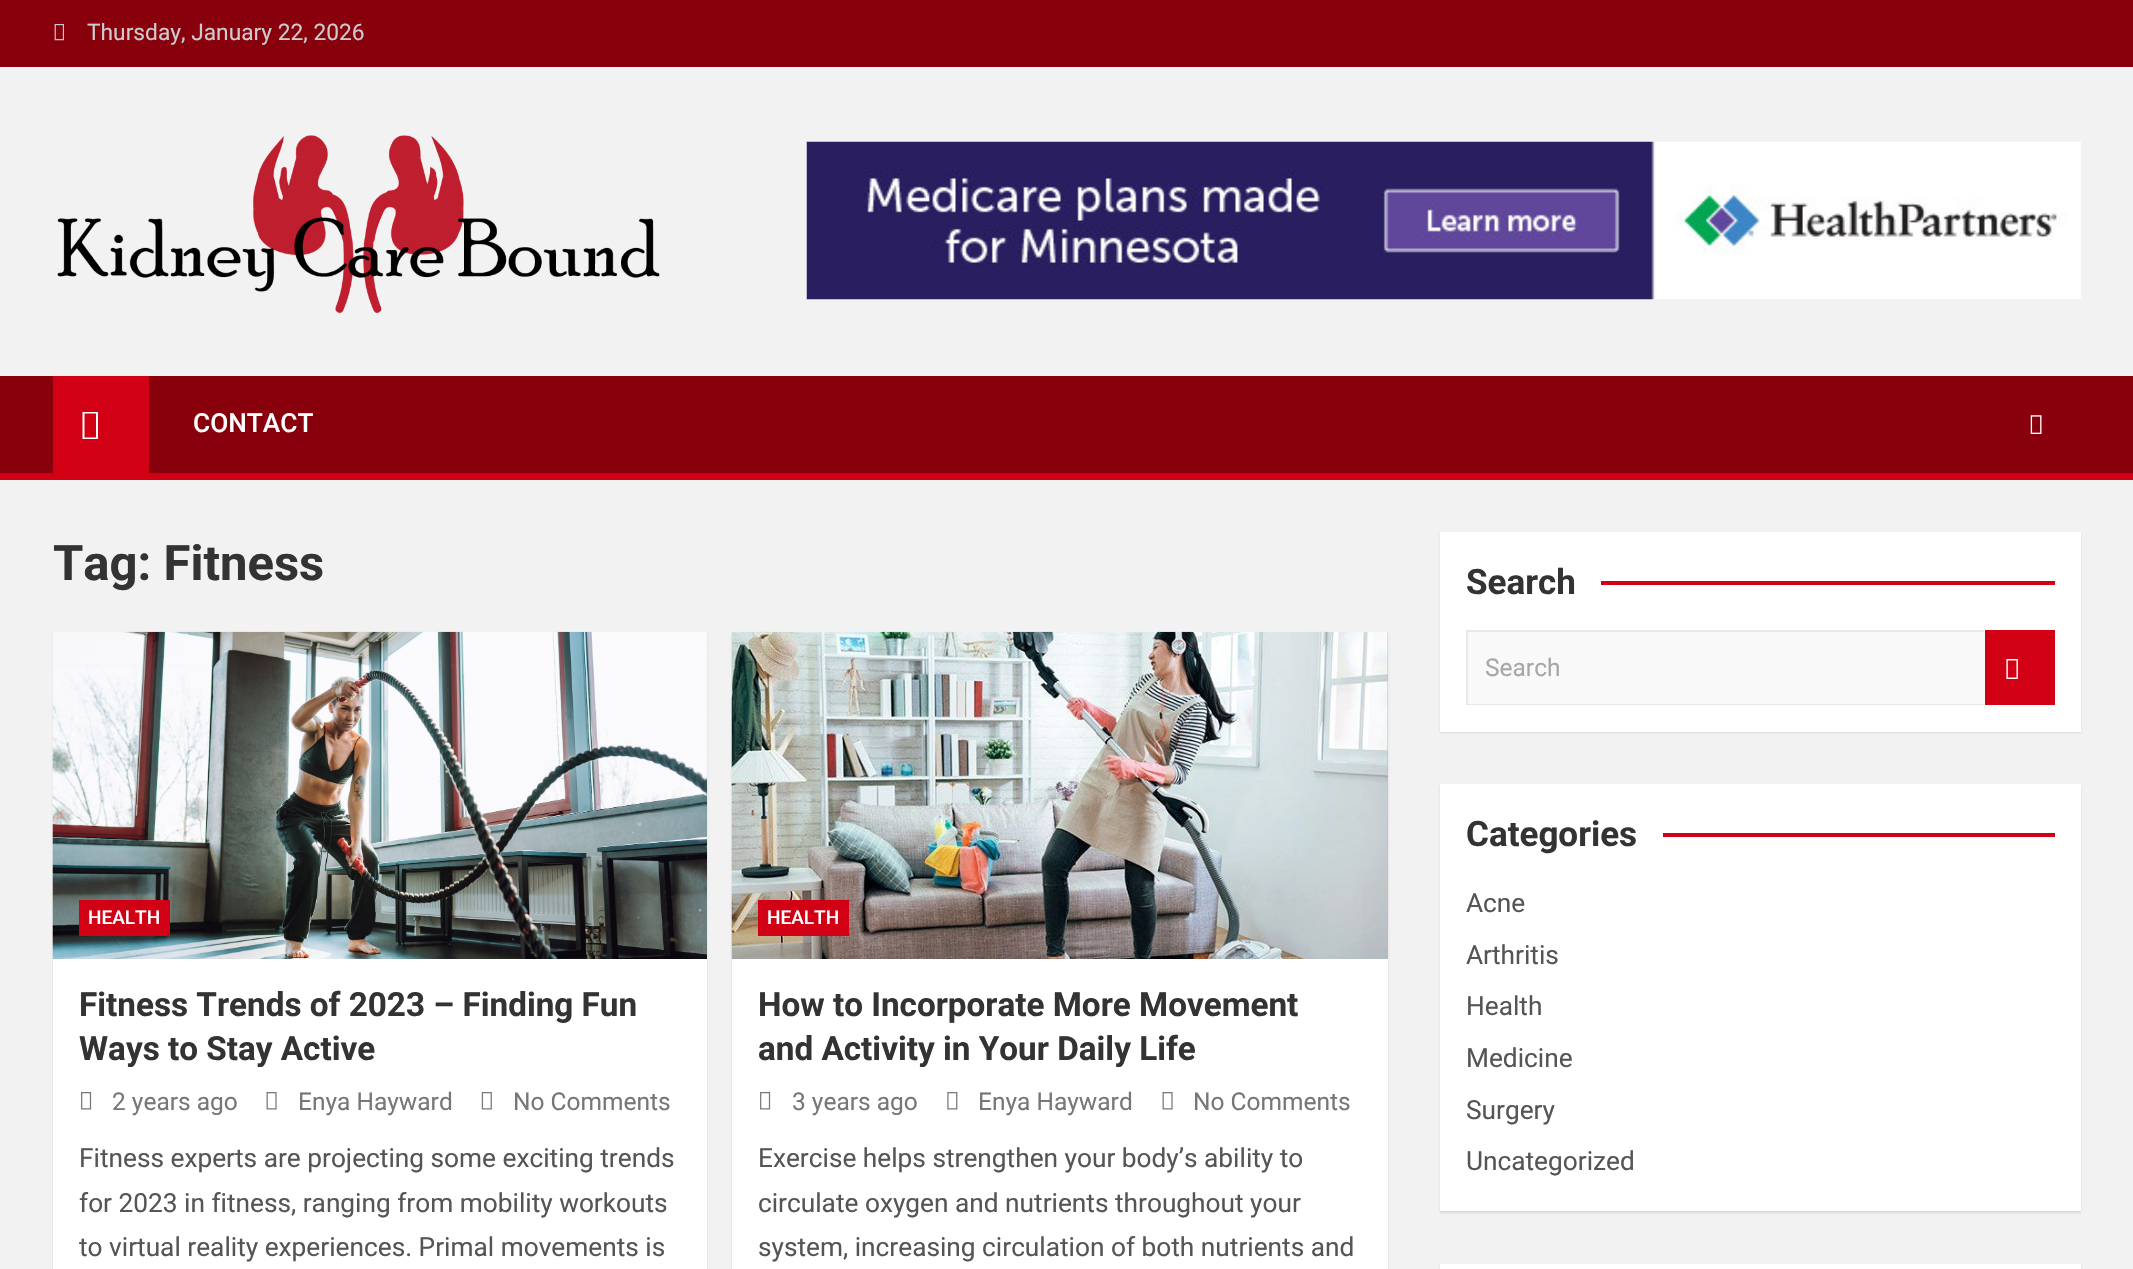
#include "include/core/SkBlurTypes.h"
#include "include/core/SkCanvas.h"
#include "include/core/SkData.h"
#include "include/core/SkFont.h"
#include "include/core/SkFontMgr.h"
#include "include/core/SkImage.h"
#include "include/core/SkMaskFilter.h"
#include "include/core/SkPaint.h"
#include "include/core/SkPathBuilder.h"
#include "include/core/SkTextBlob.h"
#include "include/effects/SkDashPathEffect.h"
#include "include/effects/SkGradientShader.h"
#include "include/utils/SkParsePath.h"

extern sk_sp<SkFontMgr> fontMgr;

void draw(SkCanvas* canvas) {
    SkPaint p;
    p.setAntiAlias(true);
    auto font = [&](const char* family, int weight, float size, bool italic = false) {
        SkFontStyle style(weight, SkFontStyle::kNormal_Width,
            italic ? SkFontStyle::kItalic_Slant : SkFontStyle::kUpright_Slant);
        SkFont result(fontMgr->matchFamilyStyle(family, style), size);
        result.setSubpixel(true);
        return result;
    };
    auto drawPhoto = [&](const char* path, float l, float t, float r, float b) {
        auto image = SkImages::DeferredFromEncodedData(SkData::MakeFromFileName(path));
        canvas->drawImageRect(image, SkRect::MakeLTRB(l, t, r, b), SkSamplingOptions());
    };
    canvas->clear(0xFFF2F2F2);
    p.setColor(0xFF89000D);
    canvas->drawRect(SkRect::MakeLTRB(0, 0, 2133, 67), p);
    drawPhoto("media/1.png", 54, 24, 64, 41);
    auto font1 = font("Roboto", 400, 22.75f);
    p.setColor(0xFFCCCCCC);
    canvas->drawString("Thursday, January 22, 2026", 87, 40, font1, p);
    drawPhoto("media/2.png", 57, 135, 660, 313);
    drawPhoto("media/3.png", 806, 141, 2081, 300);
    {
        const struct { float l, t, r, b; SkColor color; } items[] = {
            {0, 376, 2133, 473, 0xFF89000D},
            {0, 473, 2133, 480, 0xFFD10014},
            {53, 376, 149, 473, 0xFFD10014},
        };
        for (auto [l, t, r, b, color] : items) {
            p.setColor(color);
            canvas->drawRect(SkRect::MakeLTRB(l, t, r, b), p);
        }
    }
    p.setColor(0xFFFFFFFF);
    canvas->drawPath(SkPathBuilder().moveTo(82.5f, 439).lineTo(82.5f, 412).lineTo(98, 412).lineTo(98, 439).close().moveTo(84.5f, 437.5f).lineTo(96, 437.5f).lineTo(96, 413.5f).lineTo(84.5f, 413.5f).close().detach(), p);
    auto font2 = font("Roboto", 500, 26.25f);
    canvas->drawString("CONTACT", 193, 432, font2, p);
    drawPhoto("media/4.png", 2030, 415, 2042, 434);
    auto font3 = font("Roboto", 700, 49);
    p.setColor(0xFF333333);
    canvas->drawString("Tag: Fitness", 53, 580, font3, p);
    p.setColor(0x1A000000);
    p.setMaskFilter(SkMaskFilter::MakeBlur(kNormal_SkBlurStyle, 1));
    canvas->drawRect(SkRect::MakeLTRB(53, 634, 707, 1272), p);
    p.setMaskFilter(nullptr);
    p.setColor(0xFFFFFFFF);
    canvas->drawRect(SkRect::MakeLTRB(53, 959, 707, 1269), p);
    drawPhoto("media/5.png", 52, 631, 707, 959);
    p.setColor(0xFFD10014);
    canvas->drawRect(SkRect::MakeLTRB(79, 900, 170, 936), p);
    auto font4 = font("Roboto", 500, 19);
    p.setColor(0xFFFFFFFF);
    canvas->drawString("HEALTH", 88, 924, font4, p);
    auto font5 = font("Roboto", 700, 33.25f);
    p.setColor(0xFF333333);
    canvas->drawString("Fitness Trends of 2023 – Finding Fun", 79, 1016, font5, p);
    canvas->drawString("Ways to Stay Active", 79, 1060, font5, p);
    drawPhoto("media/6.png", 81, 1092, 92, 1110);
    auto font6 = font("Roboto", 400, 24.5f);
    p.setColor(0xFF777777);
    canvas->drawString("2 years ago", 112, 1110, font6, p);
    drawPhoto("media/7.png", 266, 1092, 277, 1110);
    canvas->drawString("Enya Hayward", 298, 1110, font6, p);
    drawPhoto("media/8.png", 481, 1092, 492, 1110);
    canvas->drawString("No Comments", 513, 1110, font6, p);
    auto font7 = font("Roboto", 400, 26.25f);
    p.setColor(0xFF555555);
    {
        const struct { const char* s; float x, y; } items[] = {
            {"Fitness experts are projecting some exciting trends", 79, 1167},
            {"for 2023 in fitness, ranging from mobility workouts", 79, 1212},
            {"to virtual reality experiences. Primal movements is", 79, 1256},
        };
        for (auto [s, x, y] : items) {
            canvas->drawString(s, x, y, font7, p);
        }
    }
    p.setColor(0x1A000000);
    p.setMaskFilter(SkMaskFilter::MakeBlur(kNormal_SkBlurStyle, 1));
    canvas->drawRect(SkRect::MakeLTRB(732, 634, 1388, 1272), p);
    p.setMaskFilter(nullptr);
    p.setColor(0xFFFFFFFF);
    canvas->drawRect(SkRect::MakeLTRB(732, 959, 1388, 1269), p);
    p.setColor(0xFFBBBBBB);
    canvas->drawRect(SkRect::MakeLTRB(1387, 632, 1388, 959), p);
    drawPhoto("media/9.png", 731, 631, 1388, 959);
    p.setColor(0xFFD10014);
    canvas->drawRect(SkRect::MakeLTRB(758, 900, 849, 936), p);
    p.setColor(0xFFFFFFFF);
    canvas->drawString("HEALTH", 767, 924, font4, p);
    p.setColor(0xFF333333);
    canvas->drawString("How to Incorporate More Movement", 758, 1016, font5, p);
    canvas->drawString("and Activity in Your Daily Life", 758, 1060, font5, p);
    drawPhoto("media/6.png", 760, 1092, 771, 1110);
    p.setColor(0xFF777777);
    canvas->drawString("3 years ago", 792, 1110, font6, p);
    drawPhoto("media/10.png", 947, 1092, 958, 1110);
    canvas->drawString("Enya Hayward", 978, 1110, font6, p);
    drawPhoto("media/7.png", 1162, 1092, 1173, 1110);
    canvas->drawString("No Comments", 1193, 1110, font6, p);
    p.setColor(0xFF555555);
    {
        const struct { const char* s; float x, y; } items[] = {
            {"Exercise helps strengthen your body’s ability to", 758, 1167},
            {"circulate oxygen and nutrients throughout your", 758, 1212},
            {"system, increasing circulation of both nutrients and", 758, 1256},
        };
        for (auto [s, x, y] : items) {
            canvas->drawString(s, x, y, font7, p);
        }
    }
    p.setColor(0x1A000000);
    p.setMaskFilter(SkMaskFilter::MakeBlur(kNormal_SkBlurStyle, 1));
    canvas->drawRect(SkRect::MakeLTRB(1440, 534, 2081, 733), p);
    p.setMaskFilter(nullptr);
    p.setColor(0xFFFFFFFF);
    canvas->drawRect(SkRect::MakeLTRB(1440, 532, 2081, 732), p);
    auto font8 = font("Roboto", 700, 35);
    p.setColor(0xFF333333);
    canvas->drawString("Search", 1466, 594, font8, p);
    p.setColor(0xFFD10014);
    canvas->drawRect(SkRect::MakeLTRB(1601, 581, 2055, 585), p);
    p.setColor(0xFFF9F9F9);
    canvas->drawRect(SkRect::MakeLTRB(1468, 632, 1985, 704), p);
    p.setColor(0xFFE8E8E8);
    canvas->drawPath(SkPathBuilder().moveTo(1466, 630).lineTo(1984, 630).lineTo(1984, 632).lineTo(1468, 632).close().detach(), p);
    canvas->drawPath(SkPathBuilder().moveTo(1984, 705).lineTo(1466, 705).lineTo(1468, 704).lineTo(1984, 704).close().detach(), p);
    p.setColor(0x17000000);
    canvas->drawPath(SkPathBuilder().moveTo(1466, 705).lineTo(1466, 630).lineTo(1468, 632).lineTo(1468, 704).close().detach(), p);
    p.setColor(0xFFA7A7A7);
    canvas->drawString("Search", 1485, 676, font6, p);
    p.setColor(0xFFD10014);
    canvas->drawRect(SkRect::MakeLTRB(1985, 630, 2055, 705), p);
    drawPhoto("media/11.png", 2006, 659, 2018, 679);
    p.setColor(0x1A000000);
    p.setMaskFilter(SkMaskFilter::MakeBlur(kNormal_SkBlurStyle, 1));
    canvas->drawRect(SkRect::MakeLTRB(1440, 786, 2081, 1213), p);
    p.setMaskFilter(nullptr);
    p.setColor(0xFFFFFFFF);
    canvas->drawRect(SkRect::MakeLTRB(1440, 784, 2081, 1211), p);
    p.setColor(0xFF333333);
    canvas->drawString("Categories", 1466, 846, font8, p);
    p.setColor(0xFFD10014);
    canvas->drawRect(SkRect::MakeLTRB(1663, 833, 2055, 837), p);
    p.setColor(0xFF555555);
    {
        const struct { const char* s; float x, y; } items[] = {
            {"Acne", 1466, 912},
            {"Arthritis", 1466, 964},
            {"Health", 1466, 1015},
            {"Medicine", 1466, 1067},
            {"Surgery", 1466, 1119},
            {"Uncategorized", 1466, 1170},
        };
        for (auto [s, x, y] : items) {
            canvas->drawString(s, x, y, font7, p);
        }
    }
    p.setColor(0x1A000000);
    p.setMaskFilter(SkMaskFilter::MakeBlur(kNormal_SkBlurStyle, 1));
    canvas->drawRect(SkRect::MakeLTRB(1440, 1265, 2081, 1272), p);
    p.setMaskFilter(nullptr);
    p.setColor(0xFFFFFFFF);
    canvas->drawRect(SkRect::MakeLTRB(1440, 1264, 2081, 1269), p);
}
